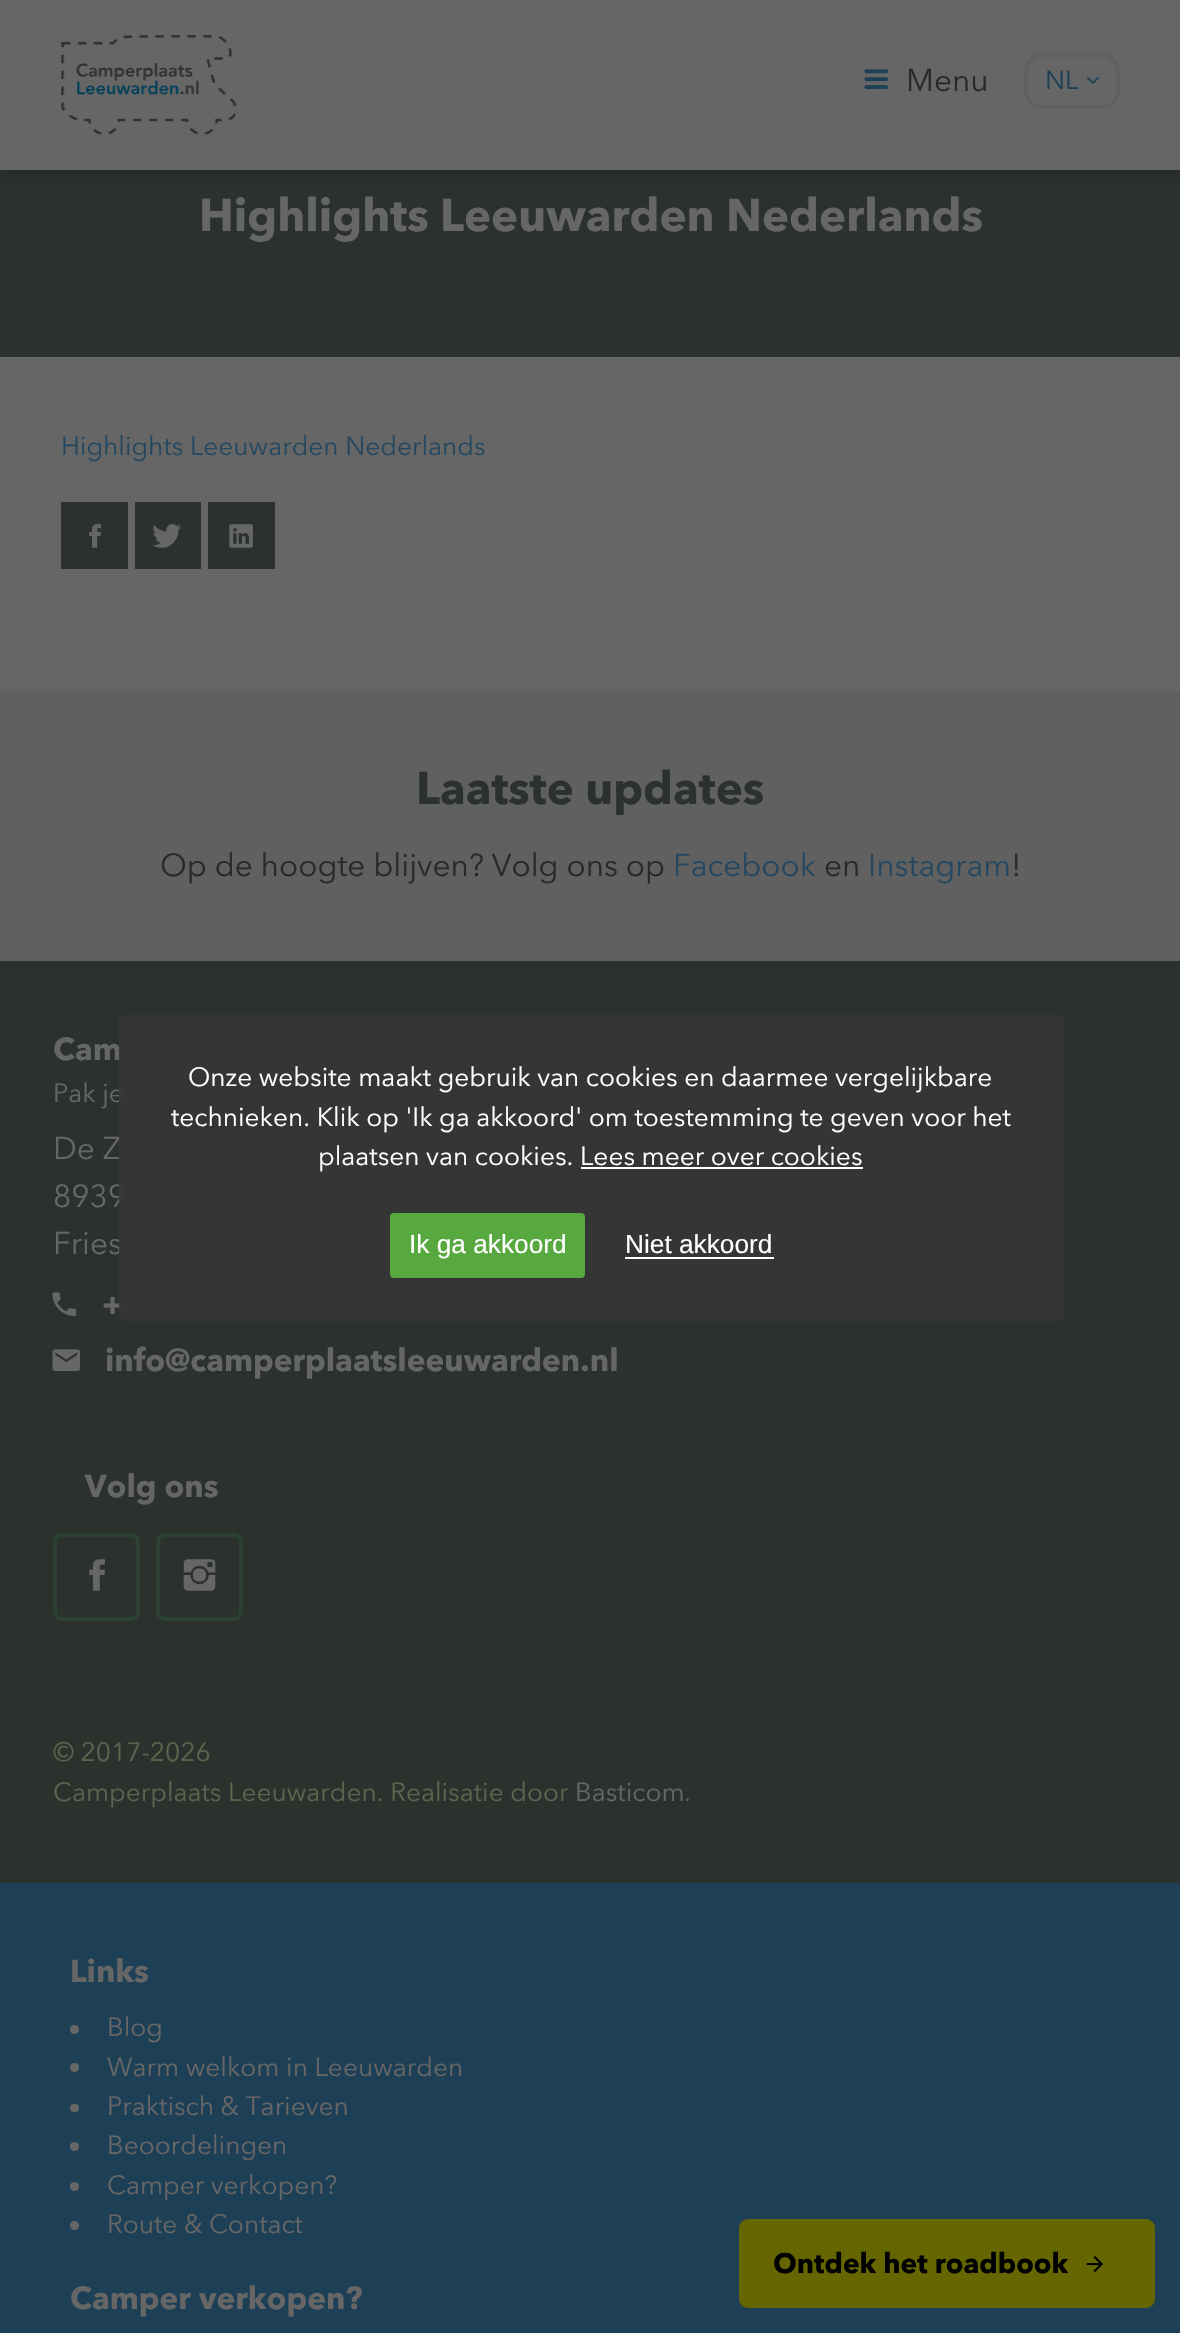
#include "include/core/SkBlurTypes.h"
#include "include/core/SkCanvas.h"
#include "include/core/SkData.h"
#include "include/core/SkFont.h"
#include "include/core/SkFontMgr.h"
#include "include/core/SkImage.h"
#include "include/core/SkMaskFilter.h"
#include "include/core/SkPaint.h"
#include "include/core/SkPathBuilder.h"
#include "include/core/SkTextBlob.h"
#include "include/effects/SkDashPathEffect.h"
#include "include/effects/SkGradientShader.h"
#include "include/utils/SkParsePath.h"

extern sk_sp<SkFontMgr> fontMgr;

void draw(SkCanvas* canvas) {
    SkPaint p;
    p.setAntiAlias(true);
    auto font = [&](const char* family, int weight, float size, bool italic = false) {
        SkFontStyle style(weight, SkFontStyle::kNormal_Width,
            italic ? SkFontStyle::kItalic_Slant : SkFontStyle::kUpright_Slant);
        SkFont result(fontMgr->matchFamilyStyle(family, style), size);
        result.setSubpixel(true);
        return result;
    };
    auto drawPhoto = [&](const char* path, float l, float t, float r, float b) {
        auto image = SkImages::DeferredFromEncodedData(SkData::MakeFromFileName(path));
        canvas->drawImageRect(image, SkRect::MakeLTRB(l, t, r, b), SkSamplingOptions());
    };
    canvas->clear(0xFF666666);
    p.setColor(0xFF2B322E);
    canvas->drawRect(SkRect::MakeLTRB(0, 170, 1180, 357), p);
    p.setColor(0x26000000);
    p.setMaskFilter(SkMaskFilter::MakeBlur(kNormal_SkBlurStyle, 7));
    canvas->drawRect(SkRect::MakeLTRB(0, 7, 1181, 177), p);
    p.setMaskFilter(nullptr);
    p.setColor(0xFF666666);
    canvas->drawRect(SkRect::MakeLTRB(0, 0, 1180, 170), p);
    drawPhoto("media/1.png", 61, 35, 237, 135);
    drawPhoto("media/2.png", 864, 69, 889, 89);
    auto font1 = font("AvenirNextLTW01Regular", 400, 31.5f);
    p.setColor(0xFF292A27);
    canvas->drawString("Menu", 906, 91, font1, p);
    p.setStyle(SkPaint::kStroke_Style);
    p.setStrokeWidth(4);
    p.setColor(0xFF606060);
    canvas->drawRoundRect(SkRect::MakeLTRB(1026, 55, 1118, 107), 16, 16, p);
    auto font2 = font("AvenirNextLTW01Regular", 400, 26.25f);
    p.setStyle(SkPaint::kFill_Style);
    p.setColor(0xFF1E4056);
    canvas->drawString("NL", 1045, 89, font2, p);
    drawPhoto("media/3.png", 1086, 77, 1099, 84);
    auto font3 = font("Avenir Next", 700, 45.5f);
    p.setColor(0xFF666666);
    canvas->drawString("Highlights Leeuwarden Nederlands", 199, 231, font3, p);
    p.setColor(0xFF254860);
    canvas->drawString("Highlights Leeuwarden Nederlands", 61, 455, font2, p);
    p.setColor(0xFF2B322E);
    canvas->drawRect(SkRect::MakeLTRB(61, 502, 128, 569), p);
    drawPhoto("media/4.png", 89, 524, 102, 548);
    canvas->drawRect(SkRect::MakeLTRB(135, 502, 201, 569), p);
    drawPhoto("media/5.png", 152, 524, 182, 548);
    canvas->drawRect(SkRect::MakeLTRB(208, 502, 275, 569), p);
    drawPhoto("media/6.png", 229, 524, 253, 548);
    p.setColor(0xFF606060);
    canvas->drawRect(SkRect::MakeLTRB(0, 691, 1180, 961), p);
    p.setColor(0xFF2B322E);
    canvas->drawString("Laatste updates", 416, 804, font3, p);
    p.setColor(0xFF292A27);
    canvas->drawString("Op de hoogte blijven? Volg ons op", 160, 876, font1, p);
    p.setColor(0xFF254860);
    canvas->drawString("Facebook", 673, 876, font1, p);
    p.setColor(0xFF292A27);
    canvas->drawString("en", 824, 876, font1, p);
    p.setColor(0xFF254860);
    canvas->drawString("Instagram", 868, 876, font1, p);
    p.setColor(0xFF292A27);
    canvas->drawString("!", 1011, 876, font1, p);
    p.setColor(0xFF2B322E);
    canvas->drawRect(SkRect::MakeLTRB(0, 961, 1180, 1883), p);
    auto font4 = font("Avenir Next", 700, 31.5f);
    p.setColor(0xFF666666);
    canvas->drawString("Cam", 53, 1060, font4, p);
    canvas->drawString("Pak je", 53, 1102, font2, p);
    {
        const struct { const char* s; float x, y; } items[] = {
            {"De Z", 53, 1159},
            {"8939", 53, 1207},
            {"Fries", 53, 1254},
        };
        for (auto [s, x, y] : items) {
            canvas->drawString(s, x, y, font1, p);
        }
    }
    drawPhoto("media/7.png", 52, 1292, 77, 1316);
    canvas->drawString("+", 102, 1315, font4, p);
    drawPhoto("media/8.png", 52, 1349, 81, 1371);
    canvas->drawString("info@camperplaatsleeuwarden.nl", 105, 1371, font4, p);
    canvas->drawString("Volg ons", 85, 1497, font4, p);
    p.setStyle(SkPaint::kStroke_Style);
    p.setColor(0xFF2A4133);
    canvas->drawRoundRect(SkRect::MakeLTRB(55, 1535, 138, 1619), 7, 7, p);
    drawPhoto("media/9.png", 89, 1559, 105, 1591);
    canvas->drawRoundRect(SkRect::MakeLTRB(158, 1535, 241, 1619), 7, 7, p);
    drawPhoto("media/10.png", 183, 1559, 216, 1591);
    p.setStyle(SkPaint::kFill_Style);
    p.setColor(0xFF5B644D);
    canvas->drawString("© 2017-2026", 53, 1761, font2, p);
    canvas->drawString("Camperplaats Leeuwarden. Realisatie door", 53, 1801, font2, p);
    p.setColor(0xFF666666);
    canvas->drawString("Basticom", 575, 1801, font2, p);
    p.setColor(0xFF5B644D);
    canvas->drawString(".", 684, 1801, font2, p);
    p.setColor(0xFF1E4056);
    canvas->drawRect(SkRect::MakeLTRB(0, 1883, 1180, 2333), p);
    p.setColor(0xFF666666);
    canvas->drawString("Links", 70, 1982, font4, p);
    canvas->drawCircle(74.5f, 2029.5f, 4.5f, p);
    canvas->drawString("Blog", 107, 2036, font2, p);
    canvas->drawCircle(74.5f, 2067.5f, 4.5f, p);
    canvas->drawString("Warm welkom in Leeuwarden", 107, 2076, font2, p);
    canvas->drawRoundRect(SkRect::MakeLTRB(70, 2104, 79, 2112), 4, 4, p);
    canvas->drawString("Praktisch & Tarieven", 107, 2115, font2, p);
    canvas->drawCircle(74.5f, 2146.5f, 4.5f, p);
    canvas->drawString("Beoordelingen", 107, 2154, font2, p);
    canvas->drawCircle(74.5f, 2186.5f, 4.5f, p);
    canvas->drawString("Camper verkopen?", 107, 2194, font2, p);
    canvas->drawCircle(74.5f, 2225.5f, 4.5f, p);
    canvas->drawString("Route & Contact", 107, 2233, font2, p);
    canvas->drawString("Camper verkopen?", 70, 2309, font4, p);
    p.setColor(0xE6353535);
    canvas->drawRoundRect(SkRect::MakeLTRB(119, 1015, 1064, 1321), 4, 4, p);
    p.setColor(0xFFFFFFFF);
    {
        const struct { const char* s; float x, y; } items[] = {
            {"Onze website maakt gebruik van cookies en daarmee vergelijkbare", 188, 1086},
            {"technieken. Klik op 'Ik ga akkoord' om toestemming te geven voor het", 171, 1126},
            {"plaatsen van cookies. Lees meer over cookies", 318, 1165},
        };
        for (auto [s, x, y] : items) {
            canvas->drawString(s, x, y, font2, p);
        }
    }
    canvas->drawRect(SkRect::MakeLTRB(581, 1167, 863, 1169), p);
    p.setColor(0xFF57A83E);
    canvas->drawRoundRect(SkRect::MakeLTRB(390, 1213, 585, 1278), 4, 4, p);
    auto font5 = font("Liberation Sans", 400, 26.25f);
    p.setColor(0xFFFFFFFF);
    canvas->drawString("Ik ga akkoord", 409, 1253, font5, p);
    canvas->drawString("Niet akkoord", 625, 1253, font5, p);
    canvas->drawRect(SkRect::MakeLTRB(625, 1257, 774, 1259), p);
    p.setColor(0xFF666600);
    canvas->drawRoundRect(SkRect::MakeLTRB(739, 2219, 1155, 2308), 9, 9, p);
    auto font6 = font("Avenir Next", 700, 28);
    p.setColor(0xFF000000);
    canvas->drawString("Ontdek het roadbook", 773, 2273, font6, p);
    drawPhoto("media/11.png", 1086, 2256, 1103, 2273);
}
